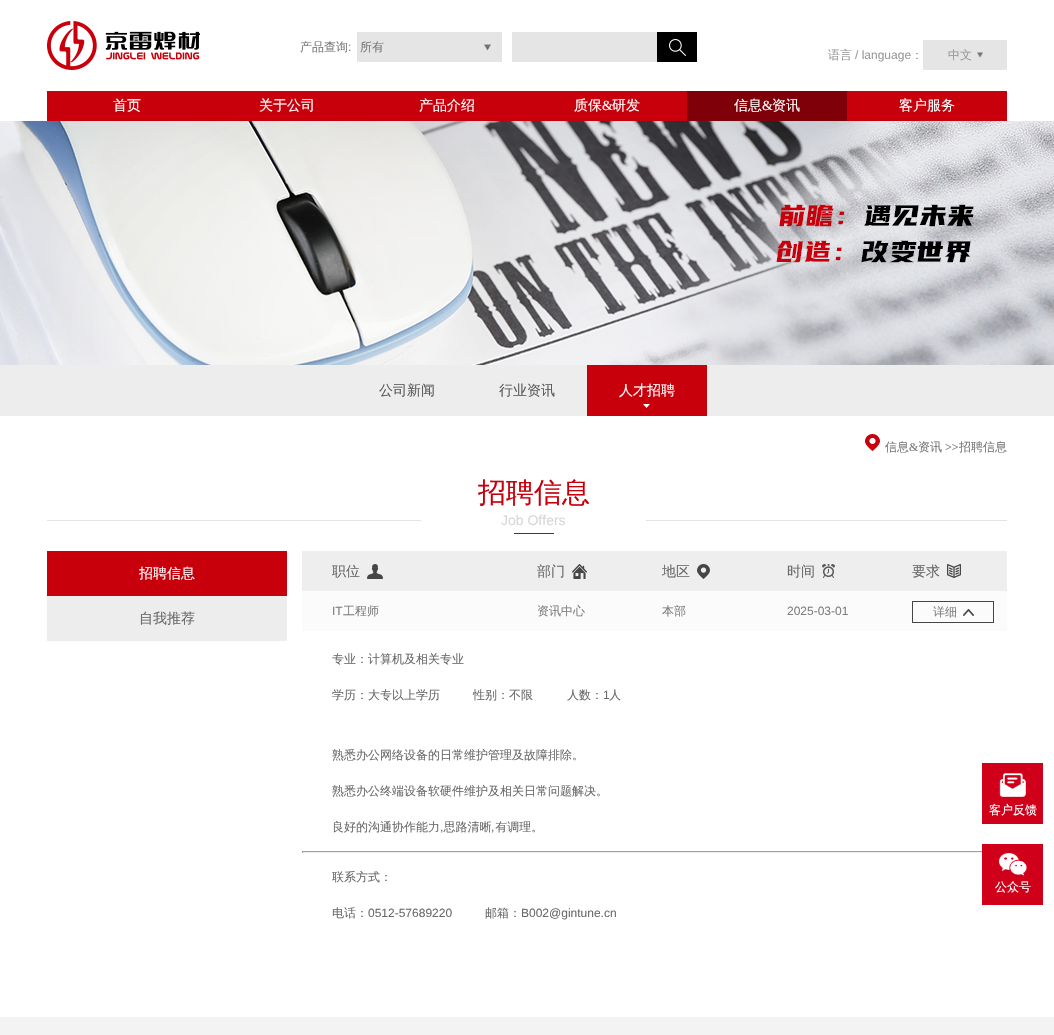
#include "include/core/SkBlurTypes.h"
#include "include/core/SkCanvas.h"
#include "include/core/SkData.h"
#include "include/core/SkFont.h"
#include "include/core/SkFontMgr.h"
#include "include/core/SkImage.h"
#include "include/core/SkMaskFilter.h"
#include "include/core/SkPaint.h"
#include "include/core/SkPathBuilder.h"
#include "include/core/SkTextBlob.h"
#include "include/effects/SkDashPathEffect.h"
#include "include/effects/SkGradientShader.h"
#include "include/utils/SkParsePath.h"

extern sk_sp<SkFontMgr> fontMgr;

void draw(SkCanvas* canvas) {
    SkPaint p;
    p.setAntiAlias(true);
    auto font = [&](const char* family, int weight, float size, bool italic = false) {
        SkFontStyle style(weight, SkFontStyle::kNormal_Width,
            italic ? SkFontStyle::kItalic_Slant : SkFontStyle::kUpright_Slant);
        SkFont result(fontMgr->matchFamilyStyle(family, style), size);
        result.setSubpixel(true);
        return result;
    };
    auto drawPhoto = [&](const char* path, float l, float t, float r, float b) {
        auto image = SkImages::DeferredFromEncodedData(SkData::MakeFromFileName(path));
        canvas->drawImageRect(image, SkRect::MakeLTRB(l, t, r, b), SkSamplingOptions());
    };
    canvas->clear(0xFFFFFFFF);
    drawPhoto("media/1.png", 47, 21, 200, 70);
    auto font1 = font("WenQuanYi Zen Hei", 500, 12);
    p.setColor(0xFF787878);
    canvas->drawString("产品查询", 300, 51, font1, p);
    auto font2 = font("Liberation Sans", 400, 12);
    canvas->drawString(":", 348, 51, font2, p);
    p.setColor(0xFFE5E5E5);
    canvas->drawRect(SkRect::MakeLTRB(357, 32, 502, 62), p);
    drawPhoto("media/2.png", 484, 44, 491, 51);
    p.setColor(0xFF787878);
    canvas->drawString("所有", 360, 51, font1, p);
    p.setColor(0xFFE5E5E5);
    canvas->drawRect(SkRect::MakeLTRB(512, 32, 657, 62), p);
    p.setColor(0xFF000000);
    canvas->drawRect(SkRect::MakeLTRB(657, 32, 697, 62), p);
    drawPhoto("media/3.png", 669, 39, 686, 56);
    p.setColor(0xFF999999);
    canvas->drawString("语言", 828, 59, font1, p);
    canvas->drawString("/ language", 855, 59, font2, p);
    canvas->drawString("：", 911, 59, font1, p);
    p.setColor(0xFFE5E5E5);
    canvas->drawRect(SkRect::MakeLTRB(923, 40, 1007, 70), p);
    p.setColor(0xFF999999);
    canvas->drawString("中文", 948, 59, font1, p);
    drawPhoto("media/4.png", 977, 52, 983, 58);
    p.setColor(0xFFC7000B);
    canvas->drawRect(SkRect::MakeLTRB(47, 91, 1007, 121), p);
    auto font3 = font("WenQuanYi Zen Hei", 500, 14);
    p.setColor(0xFFFFFFFF);
    {
        const struct { const char* s; float x, y; } items[] = {
            {"首页", 113, 110},
            {"关于公司", 259, 110},
            {"产品介绍", 419, 110},
            {"质保", 574, 110},
        };
        for (auto [s, x, y] : items) {
            canvas->drawString(s, x, y, font3, p);
        }
    }
    auto font4 = font("Liberation Serif", 400, 14);
    canvas->drawString("&", 602, 110, font4, p);
    canvas->drawString("研发", 612, 110, font3, p);
    p.setColor(0xFF7F0008);
    canvas->drawRect(SkRect::MakeLTRB(687, 91, 847, 121), p);
    p.setColor(0xFFFFFFFF);
    canvas->drawString("信息", 734, 110, font3, p);
    canvas->drawString("&", 762, 110, font4, p);
    canvas->drawString("资讯", 772, 110, font3, p);
    canvas->drawString("客户服务", 899, 110, font3, p);
    drawPhoto("media/5.png", 0, 121, 1054, 365);
    p.setColor(0xFFEDEDED);
    canvas->drawRect(SkRect::MakeLTRB(0, 365, 1054, 416), p);
    p.setColor(0xFF5A5A5A);
    canvas->drawString("公司新闻", 379, 395, font3, p);
    canvas->drawString("行业资讯", 499, 395, font3, p);
    p.setColor(0xFFC7000B);
    canvas->drawRect(SkRect::MakeLTRB(587, 365, 707, 416), p);
    drawPhoto("media/6.png", 643, 404, 650, 408);
    p.setColor(0xFFFFFFFF);
    canvas->drawString("人才招聘", 619, 395, font3, p);
    drawPhoto("media/7.png", 865, 434, 880, 451);
    p.setColor(0xFF787878);
    canvas->drawString("信息", 885, 451, font1, p);
    auto font5 = font("Liberation Serif", 400, 12);
    canvas->drawString("&", 909, 451, font5, p);
    canvas->drawString("资讯", 918, 451, font1, p);
    canvas->drawString(">>", 945, 451, font5, p);
    canvas->drawString("招聘信息", 959, 451, font1, p);
    p.setColor(0xFFE3E3E3);
    canvas->drawRect(SkRect::MakeLTRB(47, 520, 1007, 521), p);
    p.setColor(0xFFFFFFFF);
    canvas->drawRect(SkRect::MakeLTRB(421, 520, 646, 521), p);
    auto font6 = font("WenQuanYi Zen Hei", 500, 28);
    p.setColor(0xFFC7000B);
    canvas->drawString("招聘信息", 478, 502, font6, p);
    auto font7 = font("Liberation Sans", 400, 14);
    p.setColor(0xFFD8D8D8);
    canvas->drawString("Job Offers", 501, 525, font7, p);
    p.setColor(0xFFC7000B);
    canvas->drawRect(SkRect::MakeLTRB(514, 533, 554, 534), p);
    canvas->drawRect(SkRect::MakeLTRB(47, 551, 287, 596), p);
    p.setColor(0xFFFFFFFF);
    canvas->drawString("招聘信息", 139, 578, font3, p);
    p.setColor(0xFFEDEDED);
    canvas->drawRect(SkRect::MakeLTRB(47, 596, 287, 641), p);
    p.setColor(0xFF6A6A6A);
    canvas->drawString("自我推荐", 139, 623, font3, p);
    p.setColor(0xFFEEEEEE);
    canvas->drawRect(SkRect::MakeLTRB(302, 551, 1007, 591), p);
    drawPhoto("media/8.png", 367, 564, 383, 579);
    p.setColor(0xFF6A6A6A);
    canvas->drawString("职位", 332, 576, font3, p);
    drawPhoto("media/9.png", 572, 564, 587, 579);
    canvas->drawString("部门", 537, 576, font3, p);
    drawPhoto("media/10.png", 697, 564, 710, 579);
    canvas->drawString("地区", 662, 576, font3, p);
    drawPhoto("media/11.png", 822, 564, 835, 578);
    canvas->drawString("时间", 787, 576, font3, p);
    drawPhoto("media/12.png", 947, 564, 961, 578);
    canvas->drawString("要求", 912, 576, font3, p);
    p.setColor(0xFFFBFBFB);
    canvas->drawRect(SkRect::MakeLTRB(302, 591, 1007, 631), p);
    p.setColor(0xFF7F7F7F);
    canvas->drawString("IT", 332, 615, font2, p);
    {
        const struct { const char* s; float x, y; } items[] = {
            {"工程师", 343, 615},
            {"资讯中心", 537, 615},
            {"本部", 662, 615},
        };
        for (auto [s, x, y] : items) {
            canvas->drawString(s, x, y, font1, p);
        }
    }
    canvas->drawString("2025-03-01", 787, 615, font2, p);
    drawPhoto("media/13.png", 963, 609, 974, 616);
    p.setStyle(SkPaint::kStroke_Style);
    p.setStrokeWidth(1);
    p.setColor(0xFF464646);
    canvas->drawRect(SkRect::MakeLTRB(912.5f, 601.5f, 993.5f, 622.5f), p);
    p.setStyle(SkPaint::kFill_Style);
    p.setColor(0xFF7F7F7F);
    canvas->drawString("详细", 933, 616, font1, p);
    p.setColor(0xFF6A6A6A);
    {
        const struct { const char* s; float x, y; } items[] = {
            {"专业：计算机及相关专业", 332, 663},
            {"学历：大专以上学历", 332, 699},
            {"性别：不限", 473, 699},
            {"人数：", 567, 699},
        };
        for (auto [s, x, y] : items) {
            canvas->drawString(s, x, y, font1, p);
        }
    }
    canvas->drawString("1", 603, 699, font2, p);
    {
        const struct { const char* s; float x, y; } items[] = {
            {"人", 609, 699},
            {"熟悉办公网络设备的日常维护管理及故障排除。", 332, 759},
            {"熟悉办公终端设备软硬件维护及相关日常问题解决。", 332, 795},
            {"良好的沟通协作能力 思路清晰 有调理。", 332, 831},
        };
        for (auto [s, x, y] : items) {
            canvas->drawString(s, x, y, font1, p);
        }
    }
    canvas->drawString(",", 440, 831, font2, p);
    canvas->drawString(",", 491, 831, font2, p);
    {
        const struct { float l, t, r, b; SkColor color; } items[] = {
            {302, 851, 982, 852, 0xFF9F9F9F},
            {302, 852, 982, 853, 0xFFEEEEEE},
            {302, 851, 303, 853, 0xFF9F9F9F},
        };
        for (auto [l, t, r, b, color] : items) {
            p.setColor(color);
            canvas->drawRect(SkRect::MakeLTRB(l, t, r, b), p);
        }
    }
    p.setColor(0xFF6A6A6A);
    canvas->drawString("联系方式：", 332, 881, font1, p);
    canvas->drawString("电话：", 332, 917, font1, p);
    canvas->drawString("0512-57689220", 368, 917, font2, p);
    canvas->drawString("邮箱：", 485, 917, font1, p);
    canvas->drawString("B002@gintune.cn", 521, 917, font2, p);
    p.setColor(0xFFD0001A);
    canvas->drawRect(SkRect::MakeLTRB(982, 763, 1043, 824), p);
    drawPhoto("media/14.png", 999, 773, 1026, 797);
    p.setColor(0xFFFFFFFF);
    canvas->drawString("客户反馈", 989, 814, font1, p);
    p.setColor(0xFFD0001A);
    canvas->drawRect(SkRect::MakeLTRB(982, 844, 1043, 905), p);
    drawPhoto("media/15.png", 999, 853, 1027, 876);
    p.setColor(0xFFFFFFFF);
    canvas->drawString("公众号", 995, 891, font1, p);
    p.setColor(0xFFF3F3F3);
    canvas->drawRect(SkRect::MakeLTRB(0, 1017, 1054, 1035), p);
}
